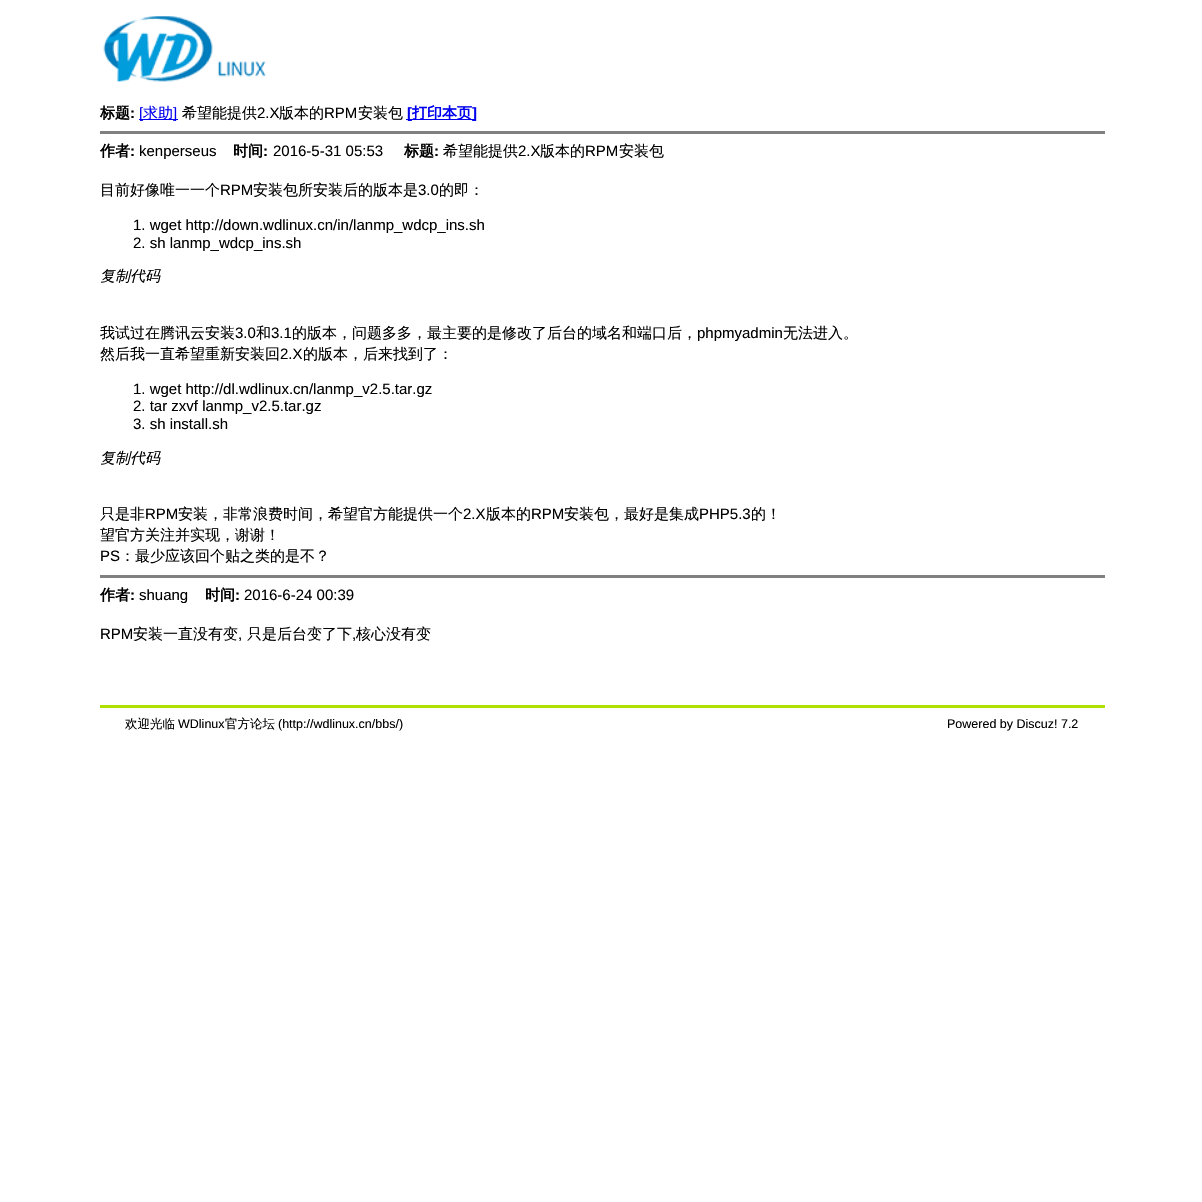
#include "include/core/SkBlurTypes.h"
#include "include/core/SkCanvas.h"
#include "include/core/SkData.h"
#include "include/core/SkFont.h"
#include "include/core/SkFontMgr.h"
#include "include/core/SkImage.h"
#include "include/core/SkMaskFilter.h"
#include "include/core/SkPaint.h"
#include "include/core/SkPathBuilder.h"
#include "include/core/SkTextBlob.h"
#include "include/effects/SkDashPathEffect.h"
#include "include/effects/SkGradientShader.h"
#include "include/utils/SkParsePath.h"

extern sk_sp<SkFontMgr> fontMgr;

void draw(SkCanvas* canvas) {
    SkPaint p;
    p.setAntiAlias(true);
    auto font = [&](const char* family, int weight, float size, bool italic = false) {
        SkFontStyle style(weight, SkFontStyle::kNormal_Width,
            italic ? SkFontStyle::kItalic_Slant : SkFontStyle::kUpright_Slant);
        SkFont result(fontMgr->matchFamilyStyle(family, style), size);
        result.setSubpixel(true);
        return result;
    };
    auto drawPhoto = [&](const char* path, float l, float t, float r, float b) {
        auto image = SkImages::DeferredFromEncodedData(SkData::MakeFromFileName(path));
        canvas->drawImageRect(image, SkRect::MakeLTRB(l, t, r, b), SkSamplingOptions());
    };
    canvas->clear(0xFFFFFFFF);
    drawPhoto("media/1.png", 103, 16, 266, 82);
    auto font1 = font("WenQuanYi Zen Hei", 700, 15);
    p.setColor(0xFF000000);
    canvas->drawString("标题", 100, 118, font1, p);
    auto font2 = font("Liberation Sans", 700, 15);
    canvas->drawString(":", 130, 118, font2, p);
    p.setColor(0xFF0000EE);
    canvas->drawRect(SkRect::MakeLTRB(139, 119, 178, 120), p);
    auto font3 = font("Liberation Sans", 400, 15);
    canvas->drawString("[", 139, 118, font3, p);
    auto font4 = font("WenQuanYi Zen Hei", 500, 15);
    canvas->drawString("求助", 143, 118, font4, p);
    canvas->drawString("]", 173, 118, font3, p);
    p.setColor(0xFF000000);
    canvas->drawString("希望能提供", 182, 118, font4, p);
    canvas->drawString("2.X", 257, 118, font3, p);
    canvas->drawString("版本的", 279, 118, font4, p);
    canvas->drawString("RPM", 324, 118, font3, p);
    canvas->drawString("安装包", 358, 118, font4, p);
    p.setColor(0xFF0000EE);
    canvas->drawRect(SkRect::MakeLTRB(406, 119, 476, 120), p);
    canvas->drawString("[", 407, 118, font2, p);
    canvas->drawString("打印本页", 412, 118, font1, p);
    canvas->drawString("]", 472, 118, font2, p);
    p.setColor(0xFF808080);
    canvas->drawRect(SkRect::MakeLTRB(100, 131, 1105, 134), p);
    p.setColor(0xFF000000);
    canvas->drawString("作者", 100, 156, font1, p);
    canvas->drawString(":", 130, 156, font2, p);
    canvas->drawString("kenperseus", 139, 156, font3, p);
    canvas->drawString("时间", 233, 156, font1, p);
    canvas->drawString(":", 263, 156, font2, p);
    canvas->drawString("2016-5-31 05:53", 273, 156, font3, p);
    canvas->drawString("标题", 404, 156, font1, p);
    canvas->drawString(":", 434, 156, font2, p);
    canvas->drawString("希望能提供", 443, 156, font4, p);
    canvas->drawString("2.X", 518, 156, font3, p);
    canvas->drawString("版本的", 540, 156, font4, p);
    canvas->drawString("RPM", 585, 156, font3, p);
    canvas->drawString("安装包", 619, 156, font4, p);
    canvas->drawString("目前好像唯一一个", 100, 195, font4, p);
    canvas->drawString("RPM", 220, 195, font3, p);
    canvas->drawString("安装包所安装后的版本是", 253, 195, font4, p);
    canvas->drawString("3.0", 418, 195, font3, p);
    canvas->drawString("的即：", 439, 195, font4, p);
    canvas->drawString("1. wget http://down.wdlinux.cn/in/lanmp_wdcp_ins.sh", 133, 230, font3, p);
    canvas->drawString("2. sh lanmp_wdcp_ins.sh", 133, 248, font3, p);
    auto font5 = font("WenQuanYi Zen Hei", 500, 15, true);
    canvas->drawString("复制代码", 100, 281, font5, p);
    canvas->drawString("我试过在腾讯云安装", 100, 338, font4, p);
    canvas->drawString("3.0", 235, 338, font3, p);
    canvas->drawString("和", 256, 338, font4, p);
    canvas->drawString("3.1", 271, 338, font3, p);
    canvas->drawString("的版本，问题多多，最主要的是修改了后台的域名和端口后，", 292, 338, font4, p);
    canvas->drawString("phpmyadmin", 697, 338, font3, p);
    canvas->drawString("无法进入。", 783, 338, font4, p);
    canvas->drawString("然后我一直希望重新安装回", 100, 359, font4, p);
    canvas->drawString("2.X", 280, 359, font3, p);
    canvas->drawString("的版本，后来找到了：", 303, 359, font4, p);
    {
        const struct { const char* s; float x, y; } items[] = {
            {"1. wget http://dl.wdlinux.cn/lanmp_v2.5.tar.gz", 133, 394},
            {"2. tar zxvf lanmp_v2.5.tar.gz", 133, 411},
            {"3. sh install.sh", 133, 429},
        };
        for (auto [s, x, y] : items) {
            canvas->drawString(s, x, y, font3, p);
        }
    }
    canvas->drawString("复制代码", 100, 463, font5, p);
    canvas->drawString("只是非", 100, 519, font4, p);
    canvas->drawString("RPM", 145, 519, font3, p);
    canvas->drawString("安装，非常浪费时间，希望官方能提供一个", 178, 519, font4, p);
    canvas->drawString("2.X", 463, 519, font3, p);
    canvas->drawString("版本的", 486, 519, font4, p);
    canvas->drawString("RPM", 531, 519, font3, p);
    canvas->drawString("安装包，最好是集成", 564, 519, font4, p);
    canvas->drawString("PHP5.3", 699, 519, font3, p);
    canvas->drawString("的！", 751, 519, font4, p);
    canvas->drawString("望官方关注并实现，谢谢！", 100, 540, font4, p);
    canvas->drawString("PS", 100, 561, font3, p);
    canvas->drawString("：最少应该回个贴之类的是不？", 120, 561, font4, p);
    p.setColor(0xFF808080);
    canvas->drawRect(SkRect::MakeLTRB(100, 575, 1105, 578), p);
    p.setColor(0xFF000000);
    canvas->drawString("作者", 100, 600, font1, p);
    canvas->drawString(":", 130, 600, font2, p);
    canvas->drawString("shuang", 139, 600, font3, p);
    canvas->drawString("时间", 205, 600, font1, p);
    canvas->drawString(":", 235, 600, font2, p);
    canvas->drawString("2016-6-24 00:39", 244, 600, font3, p);
    canvas->drawString("RPM", 100, 639, font3, p);
    canvas->drawString("安装一直没有变", 133, 639, font4, p);
    canvas->drawString(",", 238, 639, font3, p);
    canvas->drawString("只是后台变了下", 247, 639, font4, p);
    canvas->drawString(",", 352, 639, font3, p);
    canvas->drawString("核心没有变", 356, 639, font4, p);
    p.setColor(0xFFB0E000);
    canvas->drawRect(SkRect::MakeLTRB(100, 705, 1105, 708), p);
    auto font6 = font("WenQuanYi Zen Hei", 500, 12.5f);
    p.setColor(0xFF000000);
    canvas->drawString("欢迎光临", 125, 728, font6, p);
    auto font7 = font("Liberation Sans", 400, 12.5f);
    canvas->drawString("WDlinux", 178, 728, font7, p);
    canvas->drawString("官方论坛", 225, 728, font6, p);
    canvas->drawString("(http://wdlinux.cn/bbs/)", 278, 728, font7, p);
    canvas->drawString("Powered by Discuz! 7.2", 947, 728, font7, p);
}
